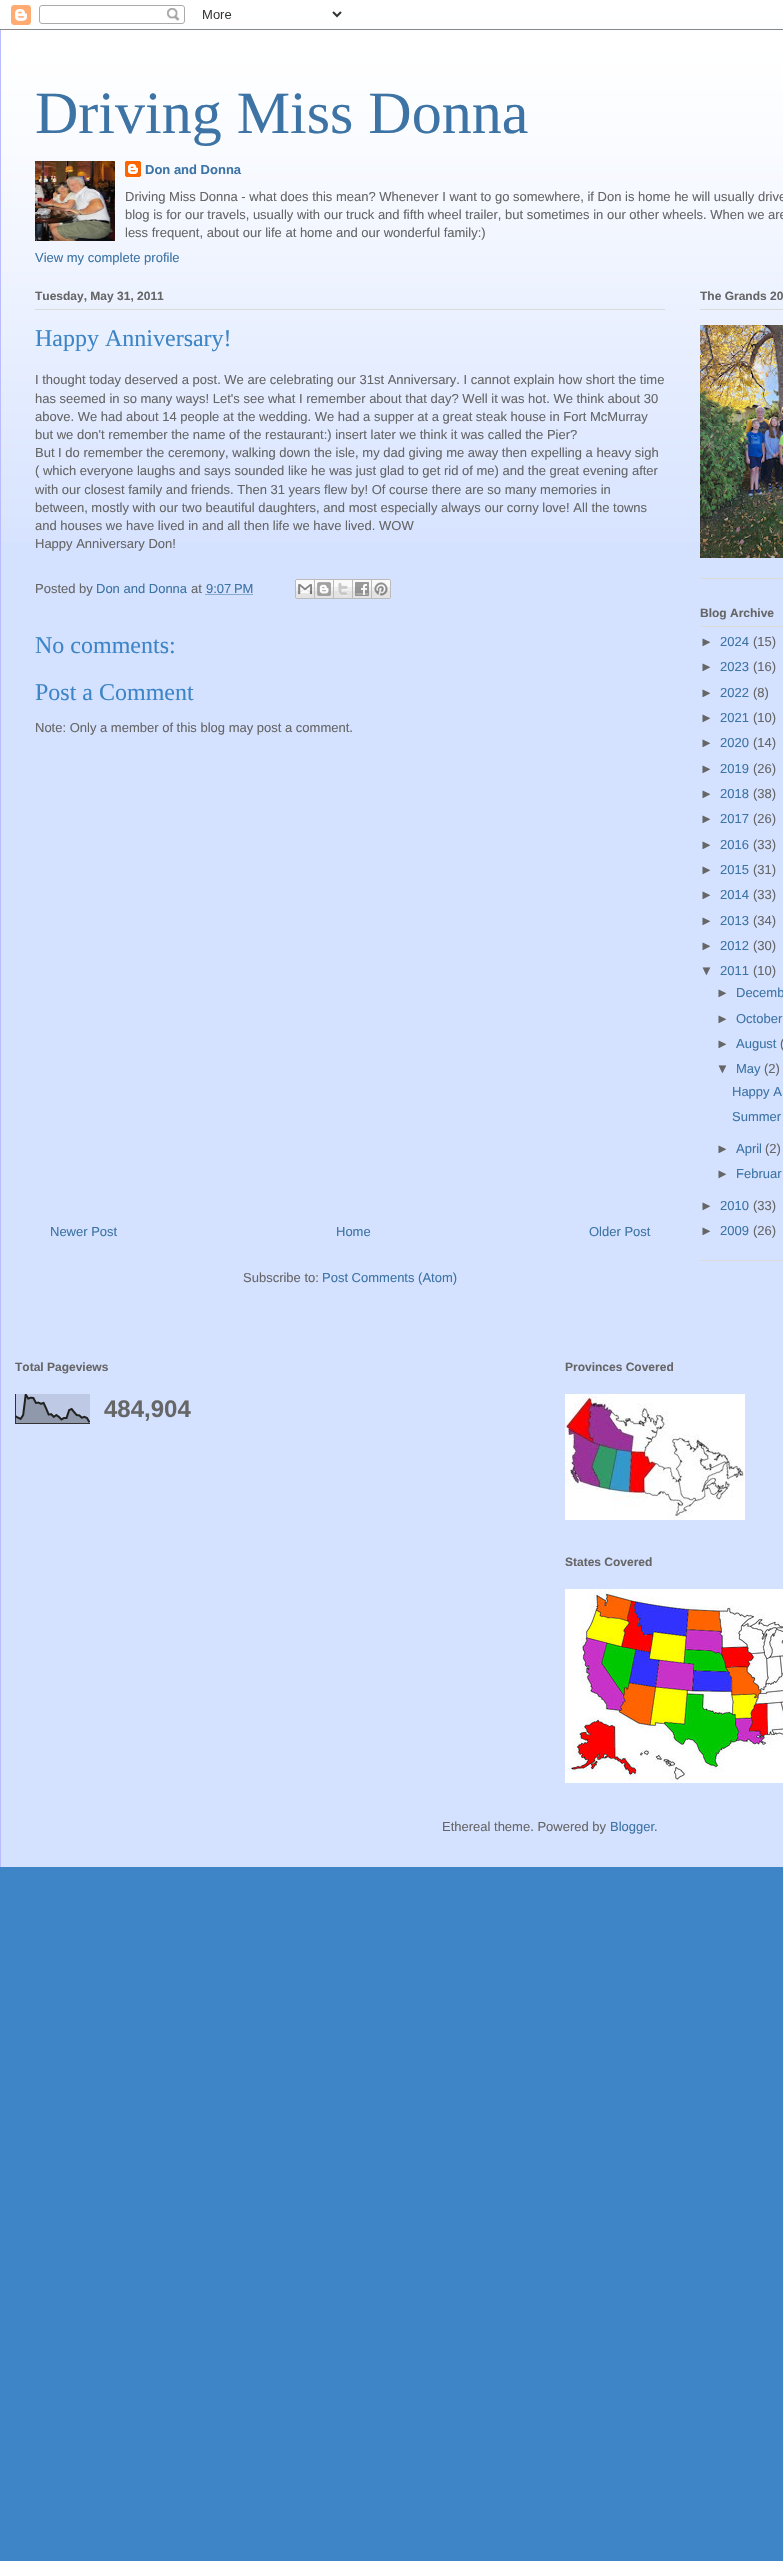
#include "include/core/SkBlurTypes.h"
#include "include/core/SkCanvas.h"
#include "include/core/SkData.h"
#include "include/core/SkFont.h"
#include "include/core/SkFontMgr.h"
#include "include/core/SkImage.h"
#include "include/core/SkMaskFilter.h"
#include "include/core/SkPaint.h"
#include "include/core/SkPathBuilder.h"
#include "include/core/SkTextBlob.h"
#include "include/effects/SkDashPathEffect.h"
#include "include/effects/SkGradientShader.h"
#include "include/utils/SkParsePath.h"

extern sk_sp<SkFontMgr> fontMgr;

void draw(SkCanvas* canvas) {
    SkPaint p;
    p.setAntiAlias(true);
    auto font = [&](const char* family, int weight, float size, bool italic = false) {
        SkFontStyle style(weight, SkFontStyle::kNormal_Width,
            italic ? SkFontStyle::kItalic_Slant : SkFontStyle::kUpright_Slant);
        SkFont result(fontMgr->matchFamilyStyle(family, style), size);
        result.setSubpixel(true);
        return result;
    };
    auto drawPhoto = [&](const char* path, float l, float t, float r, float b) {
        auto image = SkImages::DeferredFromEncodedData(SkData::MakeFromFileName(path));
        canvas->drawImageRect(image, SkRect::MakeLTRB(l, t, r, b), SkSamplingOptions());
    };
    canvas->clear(0xFF3D85C6);
    drawPhoto("media/1.png", 0, 0, 783, 29);
    drawPhoto("media/2.png", 0, 5, 783, 30);
    p.setColor(0xFFD4E1FF);
    canvas->drawRect(SkRect::MakeLTRB(1, 37, 783, 1867), p);
    drawPhoto("media/3.png", 1, 30, 783, 542);
    p.setColor(0xFFBBBBFF);
    canvas->drawRect(SkRect::MakeLTRB(0, 30, 1, 1867), p);
    auto font1 = font("Liberation Serif", 400, 60);
    p.setColor(0xFF3D74A5);
    canvas->drawString("Driving Miss Donna", 35, 133, font1, p);
    drawPhoto("media/4.png", 35, 161, 115, 241);
    drawPhoto("media/5.png", 125, 161, 141, 177);
    auto font2 = font("Liberation Sans", 700, 13);
    canvas->drawString("Don and Donna", 145, 174, font2, p);
    auto font3 = font("Liberation Sans", 400, 13);
    p.setColor(0xFF666666);
    {
        const struct { const char* s; float x, y; } items[] = {
            {"Driving Miss Donna - what does this mean? Whenever I want to go somewhere, if Don is home he will usually drive", 125, 201},
            {"blog is for our travels, usually with our truck and fifth wheel trailer, but sometimes in our other wheels. When we are", 125, 219},
            {"less frequent, about our life at home and our wonderful family:)", 125, 237},
        };
        for (auto [s, x, y] : items) {
            canvas->drawString(s, x, y, font3, p);
        }
    }
    p.setColor(0xFF3D74A5);
    canvas->drawString("View my complete profile", 35, 262, font3, p);
    p.setColor(0xFFDBDBDB);
    canvas->drawRect(SkRect::MakeLTRB(35, 309, 665, 310), p);
    auto font4 = font("Liberation Sans", 700, 12);
    p.setColor(0xFF666666);
    canvas->drawString("Tuesday, May 31, 2011", 35, 300, font4, p);
    auto font5 = font("Liberation Serif", 400, 24);
    p.setColor(0xFF3D85C6);
    canvas->drawString("Happy Anniversary!", 35, 346, font5, p);
    p.setColor(0xFF666666);
    {
        const struct { const char* s; float x, y; } items[] = {
            {"I thought today deserved a post. We are celebrating our 31st Anniversary. I cannot explain how short the time", 35, 384},
            {"has seemed in so many ways! Let's see what I remember about that day? Well it was hot. We think about 30", 35, 403},
            {"above. We had about 14 people at the wedding. We had a supper at a great steak house in Fort McMurray", 35, 421},
            {"but we don't remember the name of the restaurant:) insert later we think it was called the Pier?", 35, 439},
            {"But I do remember the ceremony, walking down the isle, my dad giving me away then expelling a heavy sigh", 35, 457},
            {"( which everyone laughs and says sounded like he was just glad to get rid of me) and the great evening after", 35, 475},
            {"with our closest family and friends. Then 31 years flew by! Of course there are so many memories in", 35, 494},
            {"between, mostly with our two beautiful daughters, and most especially always our corny love! All the towns", 35, 512},
            {"and houses we have lived in and all then life we have lived. WOW", 35, 530},
            {"Happy Anniversary Don!", 35, 548},
            {"Posted by", 35, 593},
        };
        for (auto [s, x, y] : items) {
            canvas->drawString(s, x, y, font3, p);
        }
    }
    p.setColor(0xFF3D74A5);
    canvas->drawString("Don and Donna", 96, 593, font3, p);
    p.setColor(0xFF666666);
    canvas->drawString("at", 191, 593, font3, p);
    p.setColor(0xFF3D74A5);
    canvas->drawString("9:07 PM", 206, 593, font3, p);
    p.setStyle(SkPaint::kStroke_Style);
    p.setStrokeWidth(1);
    p.setPathEffect(SkDashPathEffect::Make({{1, 1}}, 0));
    canvas->drawPath(SkPathBuilder().moveTo(205.5f, 594.5f).lineTo(253, 594.5f).detach(), p);
    p.setPathEffect(nullptr);
    drawPhoto("media/6.png", 295, 579, 315, 599);
    drawPhoto("media/7.png", 315, 579, 334, 599);
    drawPhoto("media/8.png", 334, 579, 353, 599);
    drawPhoto("media/9.png", 353, 579, 372, 599);
    drawPhoto("media/10.png", 372, 579, 391, 599);
    p.setStyle(SkPaint::kFill_Style);
    p.setColor(0xFF3D85C6);
    canvas->drawString("No comments:", 35, 653, font5, p);
    canvas->drawString("Post a Comment", 35, 700, font5, p);
    p.setColor(0xFF666666);
    canvas->drawString("Note: Only a member of this blog may post a comment.", 35, 732, font3, p);
    p.setColor(0xFF3D74A5);
    {
        const struct { const char* s; float x, y; } items[] = {
            {"Newer Post", 50, 1236},
            {"Home", 336, 1236},
            {"Older Post", 589, 1236},
        };
        for (auto [s, x, y] : items) {
            canvas->drawString(s, x, y, font3, p);
        }
    }
    p.setColor(0xFF666666);
    canvas->drawString("Subscribe to:", 243, 1282, font3, p);
    p.setColor(0xFF3D74A5);
    canvas->drawString("Post Comments (Atom)", 322, 1282, font3, p);
    p.setColor(0xFFDBDBDB);
    canvas->drawRect(SkRect::MakeLTRB(700, 578, 783, 579), p);
    canvas->drawRect(SkRect::MakeLTRB(700, 309, 783, 310), p);
    p.setColor(0xFF666666);
    canvas->drawString("The Grands 20", 700, 300, font4, p);
    drawPhoto("media/11.png", 700, 325, 783, 558);
    p.setColor(0xFFDBDBDB);
    canvas->drawRect(SkRect::MakeLTRB(700, 1260, 783, 1261), p);
    canvas->drawRect(SkRect::MakeLTRB(700, 626, 783, 627), p);
    p.setColor(0xFF666666);
    canvas->drawString("Blog Archive", 700, 617, font4, p);
    canvas->drawString("►", 700, 646, font3, p);
    p.setColor(0xFF3D74A5);
    canvas->drawString("2024", 720, 646, font3, p);
    p.setColor(0xFF666666);
    canvas->drawString("(15)", 753, 646, font3, p);
    canvas->drawString("►", 700, 671, font3, p);
    p.setColor(0xFF3D74A5);
    canvas->drawString("2023", 720, 671, font3, p);
    p.setColor(0xFF666666);
    canvas->drawString("(16)", 753, 671, font3, p);
    canvas->drawString("►", 700, 697, font3, p);
    p.setColor(0xFF3D74A5);
    canvas->drawString("2022", 720, 697, font3, p);
    p.setColor(0xFF666666);
    canvas->drawString("(8)", 753, 697, font3, p);
    canvas->drawString("►", 700, 722, font3, p);
    p.setColor(0xFF3D74A5);
    canvas->drawString("2021", 720, 722, font3, p);
    p.setColor(0xFF666666);
    canvas->drawString("(10)", 753, 722, font3, p);
    canvas->drawString("►", 700, 747, font3, p);
    p.setColor(0xFF3D74A5);
    canvas->drawString("2020", 720, 747, font3, p);
    p.setColor(0xFF666666);
    canvas->drawString("(14)", 753, 747, font3, p);
    canvas->drawString("►", 700, 773, font3, p);
    p.setColor(0xFF3D74A5);
    canvas->drawString("2019", 720, 773, font3, p);
    p.setColor(0xFF666666);
    canvas->drawString("(26)", 753, 773, font3, p);
    canvas->drawString("►", 700, 798, font3, p);
    p.setColor(0xFF3D74A5);
    canvas->drawString("2018", 720, 798, font3, p);
    p.setColor(0xFF666666);
    canvas->drawString("(38)", 753, 798, font3, p);
    canvas->drawString("►", 700, 823, font3, p);
    p.setColor(0xFF3D74A5);
    canvas->drawString("2017", 720, 823, font3, p);
    p.setColor(0xFF666666);
    canvas->drawString("(26)", 753, 823, font3, p);
    canvas->drawString("►", 700, 849, font3, p);
    p.setColor(0xFF3D74A5);
    canvas->drawString("2016", 720, 849, font3, p);
    p.setColor(0xFF666666);
    canvas->drawString("(33)", 753, 849, font3, p);
    canvas->drawString("►", 700, 874, font3, p);
    p.setColor(0xFF3D74A5);
    canvas->drawString("2015", 720, 874, font3, p);
    p.setColor(0xFF666666);
    canvas->drawString("(31)", 753, 874, font3, p);
    canvas->drawString("►", 700, 899, font3, p);
    p.setColor(0xFF3D74A5);
    canvas->drawString("2014", 720, 899, font3, p);
    p.setColor(0xFF666666);
    canvas->drawString("(33)", 753, 899, font3, p);
    canvas->drawString("►", 700, 925, font3, p);
    p.setColor(0xFF3D74A5);
    canvas->drawString("2013", 720, 925, font3, p);
    p.setColor(0xFF666666);
    canvas->drawString("(34)", 753, 925, font3, p);
    canvas->drawString("►", 700, 950, font3, p);
    p.setColor(0xFF3D74A5);
    canvas->drawString("2012", 720, 950, font3, p);
    p.setColor(0xFF666666);
    canvas->drawString("(30)", 753, 950, font3, p);
    canvas->drawString("▼", 700, 975, font3, p);
    p.setColor(0xFF3D74A5);
    canvas->drawString("2011", 720, 975, font3, p);
    p.setColor(0xFF666666);
    canvas->drawString("(10)", 753, 975, font3, p);
    canvas->drawString("►", 716, 997, font3, p);
    p.setColor(0xFF3D74A5);
    canvas->drawString("Decemb", 736, 997, font3, p);
    p.setColor(0xFF666666);
    canvas->drawString("►", 716, 1023, font3, p);
    p.setColor(0xFF3D74A5);
    canvas->drawString("October", 736, 1023, font3, p);
    p.setColor(0xFF666666);
    canvas->drawString("►", 716, 1048, font3, p);
    p.setColor(0xFF3D74A5);
    canvas->drawString("August", 736, 1048, font3, p);
    p.setColor(0xFF666666);
    canvas->drawString("(", 780, 1048, font3, p);
    canvas->drawString("▼", 716, 1073, font3, p);
    p.setColor(0xFF3D74A5);
    canvas->drawString("May", 736, 1073, font3, p);
    p.setColor(0xFF666666);
    canvas->drawString("(2)", 764, 1073, font3, p);
    p.setColor(0xFF3D74A5);
    canvas->drawString("Happy A", 732, 1096, font3, p);
    canvas->drawString("Summer", 732, 1121, font3, p);
    p.setColor(0xFF666666);
    canvas->drawString("►", 716, 1153, font3, p);
    p.setColor(0xFF3D74A5);
    canvas->drawString("April", 736, 1153, font3, p);
    p.setColor(0xFF666666);
    canvas->drawString("(2)", 765, 1153, font3, p);
    canvas->drawString("►", 716, 1178, font3, p);
    p.setColor(0xFF3D74A5);
    canvas->drawString("Februar", 736, 1178, font3, p);
    p.setColor(0xFF666666);
    canvas->drawString("►", 700, 1210, font3, p);
    p.setColor(0xFF3D74A5);
    canvas->drawString("2010", 720, 1210, font3, p);
    p.setColor(0xFF666666);
    canvas->drawString("(33)", 753, 1210, font3, p);
    canvas->drawString("►", 700, 1235, font3, p);
    p.setColor(0xFF3D74A5);
    canvas->drawString("2009", 720, 1235, font3, p);
    p.setColor(0xFF666666);
    canvas->drawString("(26)", 753, 1235, font3, p);
    canvas->drawString("Total Pageviews", 15, 1371, font4, p);
    drawPhoto("media/12.png", 15, 1394, 90, 1424);
    auto font6 = font("Liberation Sans", 700, 24);
    canvas->drawString("484,904", 104, 1417, font6, p);
    canvas->drawString("Provinces Covered", 565, 1371, font4, p);
    drawPhoto("media/13.png", 565, 1394, 745, 1520);
    canvas->drawString("States Covered", 565, 1566, font4, p);
    drawPhoto("media/14.png", 565, 1589, 783, 1783);
    canvas->drawString("Ethereal theme. Powered by", 442, 1831, font3, p);
    p.setColor(0xFF3D74A5);
    canvas->drawString("Blogger", 610, 1831, font3, p);
    p.setColor(0xFF666666);
    canvas->drawString(".", 654, 1831, font3, p);
}
